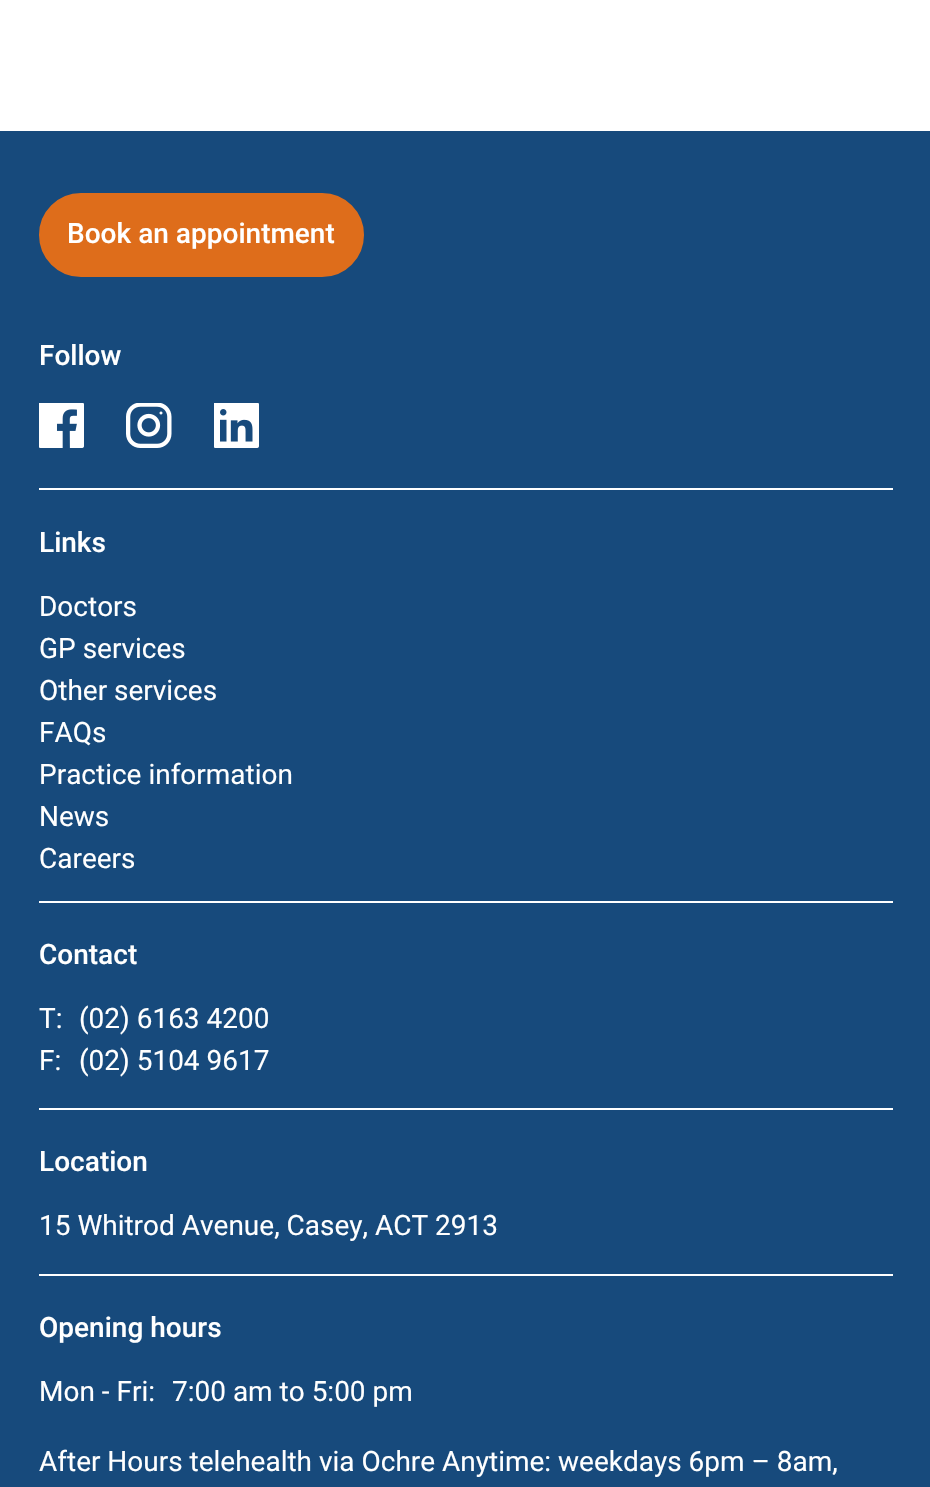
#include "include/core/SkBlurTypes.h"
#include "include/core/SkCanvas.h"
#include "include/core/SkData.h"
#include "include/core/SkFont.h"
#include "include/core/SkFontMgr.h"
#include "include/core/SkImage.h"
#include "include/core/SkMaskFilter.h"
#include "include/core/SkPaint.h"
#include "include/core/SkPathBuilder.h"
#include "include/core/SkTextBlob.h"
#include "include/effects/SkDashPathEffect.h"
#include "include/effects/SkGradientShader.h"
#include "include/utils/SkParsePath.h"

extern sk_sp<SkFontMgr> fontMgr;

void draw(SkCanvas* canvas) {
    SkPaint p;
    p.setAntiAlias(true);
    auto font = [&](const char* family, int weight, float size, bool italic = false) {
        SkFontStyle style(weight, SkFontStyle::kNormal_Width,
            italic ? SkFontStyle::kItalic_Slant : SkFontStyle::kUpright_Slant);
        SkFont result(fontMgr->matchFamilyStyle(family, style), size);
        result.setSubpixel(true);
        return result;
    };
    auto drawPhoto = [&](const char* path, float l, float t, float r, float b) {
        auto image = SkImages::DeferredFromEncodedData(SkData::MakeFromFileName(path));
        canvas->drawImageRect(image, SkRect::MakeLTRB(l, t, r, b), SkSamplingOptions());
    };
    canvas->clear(0xFFFFFFFF);
    p.setColor(0xFF174A7C);
    canvas->drawRect(SkRect::MakeLTRB(0, 131, 930, 1487), p);
    p.setColor(0xFFDE6D1B);
    canvas->drawRoundRect(SkRect::MakeLTRB(41, 195, 362, 275), 40, 40, p);
    p.setStyle(SkPaint::kStroke_Style);
    p.setStrokeWidth(4);
    canvas->drawRoundRect(SkRect::MakeLTRB(41, 195, 362, 275), 40, 40, p);
    auto font1 = font("Roboto", 500, 28);
    p.setStyle(SkPaint::kFill_Style);
    p.setColor(0xFFFFFFFF);
    canvas->drawString("Book an appointment", 67, 243, font1, p);
    canvas->drawString("Follow", 39, 365, font1, p);
    drawPhoto("media/1.png", 39, 403, 84, 448);
    drawPhoto("media/2.png", 126, 403, 172, 448);
    drawPhoto("media/3.png", 214, 403, 259, 448);
    canvas->drawRect(SkRect::MakeLTRB(39, 488, 893, 490), p);
    canvas->drawString("Links", 39, 552, font1, p);
    auto font2 = font("Roboto", 400, 28);
    {
        const struct { const char* s; float x, y; } items[] = {
            {"Doctors", 39, 616},
            {"GP services", 39, 658},
            {"Other services", 39, 700},
            {"FAQs", 39, 742},
            {"Practice information", 39, 784},
            {"News", 39, 826},
            {"Careers", 39, 868},
        };
        for (auto [s, x, y] : items) {
            canvas->drawString(s, x, y, font2, p);
        }
    }
    canvas->drawRect(SkRect::MakeLTRB(39, 901, 893, 903), p);
    canvas->drawString("Contact", 39, 964, font1, p);
    {
        const struct { const char* s; float x, y; } items[] = {
            {"T:", 39, 1028},
            {"(02) 6163 4200", 79, 1028},
            {"F:", 39, 1070},
            {"(02) 5104 9617", 79, 1070},
        };
        for (auto [s, x, y] : items) {
            canvas->drawString(s, x, y, font2, p);
        }
    }
    canvas->drawRect(SkRect::MakeLTRB(39, 1108, 893, 1110), p);
    canvas->drawString("Location", 39, 1171, font1, p);
    canvas->drawString("15 Whitrod Avenue, Casey, ACT 2913", 39, 1235, font2, p);
    canvas->drawRect(SkRect::MakeLTRB(39, 1274, 893, 1276), p);
    canvas->drawString("Opening hours", 39, 1337, font1, p);
    {
        const struct { const char* s; float x, y; } items[] = {
            {"Mon - Fri:", 39, 1401},
            {"7:00 am to 5:00 pm", 172, 1401},
            {"After Hours telehealth via Ochre Anytime: weekdays 6pm – 8am,", 39, 1471},
        };
        for (auto [s, x, y] : items) {
            canvas->drawString(s, x, y, font2, p);
        }
    }
}
